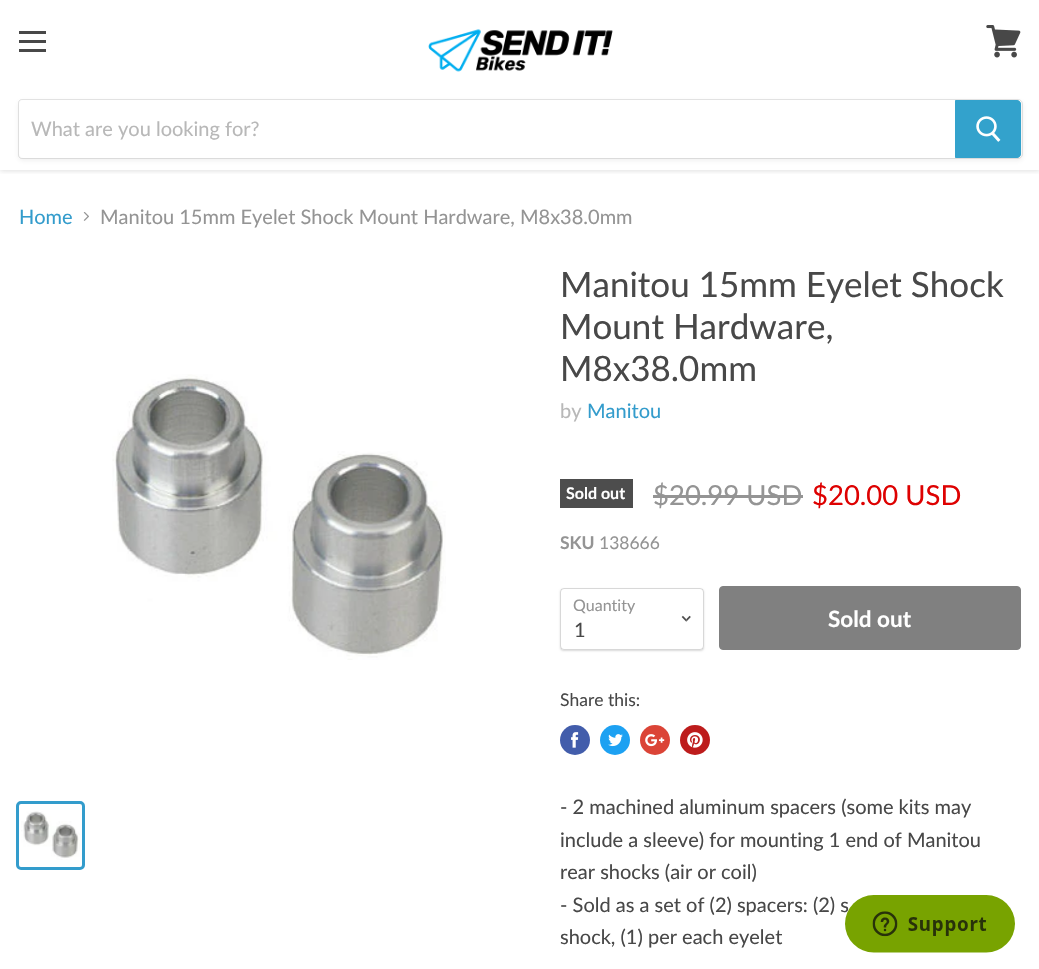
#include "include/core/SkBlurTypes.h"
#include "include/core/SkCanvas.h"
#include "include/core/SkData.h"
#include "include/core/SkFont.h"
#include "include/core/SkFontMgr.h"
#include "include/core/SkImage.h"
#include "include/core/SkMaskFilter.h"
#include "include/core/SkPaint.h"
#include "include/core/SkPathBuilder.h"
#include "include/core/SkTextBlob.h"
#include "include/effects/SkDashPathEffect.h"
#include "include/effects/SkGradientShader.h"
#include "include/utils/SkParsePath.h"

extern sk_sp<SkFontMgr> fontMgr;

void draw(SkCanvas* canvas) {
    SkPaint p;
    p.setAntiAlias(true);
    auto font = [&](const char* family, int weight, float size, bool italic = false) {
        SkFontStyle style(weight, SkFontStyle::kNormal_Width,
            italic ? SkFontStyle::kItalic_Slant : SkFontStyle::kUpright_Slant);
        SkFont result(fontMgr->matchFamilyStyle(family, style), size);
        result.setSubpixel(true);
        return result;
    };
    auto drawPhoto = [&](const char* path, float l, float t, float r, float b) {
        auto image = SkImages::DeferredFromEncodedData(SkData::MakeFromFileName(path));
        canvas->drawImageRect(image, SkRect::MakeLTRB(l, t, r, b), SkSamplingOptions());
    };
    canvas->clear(0xFFFFFFFF);
    canvas->save();
    canvas->clipRect(SkRect::MakeLTRB(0, 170, 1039, 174));
    p.setColor(0x407F7F7F);
    p.setMaskFilter(SkMaskFilter::MakeBlur(kNormal_SkBlurStyle, 2.5f));
    canvas->drawRect(SkRect::MakeLTRB(0, 1, 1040, 171), p);
    p.setMaskFilter(nullptr);
    canvas->restore();
    {
        const struct { float l, t, r, b; SkColor color; } items[] = {
            {19, 31, 46, 34, 0xFF484848},
            {19, 40, 46, 43, 0xFF484848},
            {19, 49, 46, 52, 0xFF484848},
        };
        for (auto [l, t, r, b, color] : items) {
            p.setColor(color);
            canvas->drawRect(SkRect::MakeLTRB(l, t, r, b), p);
        }
    }
    drawPhoto("media/1.png", 986, 25, 1021, 58);
    drawPhoto("media/2.png", 428, 29, 613, 72);
    p.setColor(0x1C7F7F7F);
    p.setMaskFilter(SkMaskFilter::MakeBlur(kNormal_SkBlurStyle, 2));
    canvas->drawRoundRect(SkRect::MakeLTRB(18, 101, 1023, 161), 5, 5, p);
    p.setMaskFilter(nullptr);
    p.setStyle(SkPaint::kStroke_Style);
    p.setStrokeWidth(1);
    p.setColor(0x337F7F7F);
    canvas->drawPath(SkPathBuilder().moveTo(22, 99.5f).lineTo(1018, 99.5f).cubicTo(1020.5f, 99.5f, 1022.5f, 101.5f, 1022.5f, 104).lineTo(1022.5f, 154).cubicTo(1022.5f, 156.5f, 1020.5f, 158.5f, 1018, 158.5f).lineTo(22, 158.5f).cubicTo(20, 158.5f, 18.5f, 157, 18.5f, 155).lineTo(18.5f, 103).cubicTo(18.5f, 101, 20, 99.5f, 22, 99.5f).close().detach(), p);
    p.setStyle(SkPaint::kFill_Style);
    p.setColor(0xFFFFFFFF);
    canvas->drawPath(SkPathBuilder().moveTo(23, 100).lineTo(955, 100).lineTo(955, 158).lineTo(23, 158).cubicTo(21, 158, 19, 156, 19, 154).lineTo(19, 104).cubicTo(19, 102, 21, 100, 23, 100).close().detach(), p);
    auto font1 = font("Lato", 400, 20);
    p.setColor(0xFFB8B8B8);
    canvas->drawString("What are you looking for?", 31, 136, font1, p);
    p.setColor(0xFF33A2CC);
    canvas->drawPath(SkPathBuilder().moveTo(955.5f, 100.5f).lineTo(1017, 100.5f).cubicTo(1019, 100.5f, 1020.5f, 102, 1020.5f, 104).lineTo(1020.5f, 154).cubicTo(1020.5f, 156, 1019, 157.5f, 1017, 157.5f).lineTo(955.5f, 157.5f).close().detach(), p);
    p.setStyle(SkPaint::kStroke_Style);
    canvas->drawPath(SkPathBuilder().moveTo(955.5f, 100.5f).lineTo(1017, 100.5f).cubicTo(1019, 100.5f, 1020.5f, 102, 1020.5f, 104).lineTo(1020.5f, 154).cubicTo(1020.5f, 156, 1019, 157.5f, 1017, 157.5f).lineTo(955.5f, 157.5f).close().detach(), p);
    drawPhoto("media/3.png", 976, 116, 1001, 142);
    p.setStyle(SkPaint::kFill_Style);
    p.setColor(0xFF339CCC);
    canvas->drawString("Home", 19, 224, font1, p);
    drawPhoto("media/4.png", 83, 212, 89, 221);
    p.setColor(0xFF949494);
    canvas->drawString("Manitou 15mm Eyelet Shock Mount Hardware, M8x38.0mm", 100, 224, font1, p);
    drawPhoto("media/5.png", 112, 374, 446, 660);
    p.setStyle(SkPaint::kStroke_Style);
    p.setStrokeWidth(3);
    p.setColor(0xFF339CCC);
    canvas->drawRoundRect(SkRect::MakeLTRB(17.5f, 802.5f, 83.5f, 868.5f), 3.5f, 3.5f, p);
    drawPhoto("media/6.png", 21, 811, 80, 860);
    auto font2 = font("Lato", 400, 35);
    p.setStyle(SkPaint::kFill_Style);
    p.setColor(0xFF484848);
    {
        const struct { const char* s; float x, y; } items[] = {
            {"Manitou 15mm Eyelet Shock", 560, 297},
            {"Mount Hardware,", 560, 339},
            {"M8x38.0mm", 560, 381},
        };
        for (auto [s, x, y] : items) {
            canvas->drawString(s, x, y, font2, p);
        }
    }
    p.setColor(0xFFB8B8B8);
    canvas->drawString("by", 560, 418, font1, p);
    p.setColor(0xFF339CCC);
    canvas->drawString("Manitou", 587, 418, font1, p);
    p.setColor(0xFF4D4D4D);
    canvas->drawRect(SkRect::MakeLTRB(560, 479, 633, 508), p);
    auto font3 = font("Lato", 700, 16);
    p.setColor(0xFFFFFFFF);
    canvas->drawString("Sold out", 566, 499, font3, p);
    auto font4 = font("Lato", 400, 27.5f);
    p.setColor(0xFF949494);
    canvas->drawString("$20.99 USD", 653, 505, font4, p);
    canvas->drawRect(SkRect::MakeLTRB(653, 495, 803, 498), p);
    p.setColor(0xFFDE0101);
    canvas->drawString("$20.00 USD", 812, 505, font4, p);
    auto font5 = font("Lato", 700, 17.5f);
    p.setColor(0xFF949494);
    canvas->drawString("SKU", 560, 549, font5, p);
    auto font6 = font("Lato", 400, 17.5f);
    canvas->drawString("138666", 599, 549, font6, p);
    canvas->save();
    canvas->clipPath(SkPathBuilder(SkPathFillType::kEvenOdd).moveTo(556, 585).lineTo(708, 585).lineTo(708, 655).lineTo(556, 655).close().moveTo(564, 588).lineTo(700, 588).cubicTo(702, 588, 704, 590, 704, 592).lineTo(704, 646).cubicTo(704, 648, 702, 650, 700, 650).lineTo(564, 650).cubicTo(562, 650, 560, 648, 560, 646).lineTo(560, 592).cubicTo(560, 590, 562, 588, 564, 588).close().detach(), true);
    p.setColor(0x26000000);
    p.setMaskFilter(SkMaskFilter::MakeBlur(kNormal_SkBlurStyle, 1));
    canvas->drawRoundRect(SkRect::MakeLTRB(560, 589, 704, 651), 4, 4, p);
    p.setMaskFilter(nullptr);
    canvas->restore();
    p.setStyle(SkPaint::kStroke_Style);
    p.setStrokeWidth(1);
    p.setColor(0x4D7F7F7F);
    canvas->drawRoundRect(SkRect::MakeLTRB(560.5f, 588.5f, 703.5f, 649.5f), 3.5f, 3.5f, p);
    auto font7 = font("Lato", 400, 16);
    p.setStyle(SkPaint::kFill_Style);
    p.setColor(0xFF949494);
    canvas->drawString("Quantity", 573, 611, font7, p);
    drawPhoto("media/7.png", 681, 615, 691, 622);
    p.setColor(0xFF484848);
    canvas->drawString("1", 574, 637, font1, p);
    p.setColor(0xFF808080);
    canvas->drawRoundRect(SkRect::MakeLTRB(719.5f, 586.5f, 1020.5f, 649.5f), 3.5f, 3.5f, p);
    p.setStyle(SkPaint::kStroke_Style);
    canvas->drawRoundRect(SkRect::MakeLTRB(719.5f, 586.5f, 1020.5f, 649.5f), 3.5f, 3.5f, p);
    auto font8 = font("Lato", 700, 22.5f);
    p.setStyle(SkPaint::kFill_Style);
    p.setColor(0xFFFFFFFF);
    canvas->drawString("Sold out", 828, 627, font8, p);
    p.setColor(0xFF484848);
    canvas->drawString("Share this:", 560, 706, font6, p);
    p.setColor(0xFF425DAB);
    canvas->drawCircle(575, 740, 15, p);
    drawPhoto("media/8.png", 571, 732, 579, 748);
    p.setColor(0xFF1DA1F2);
    canvas->drawCircle(615, 740, 15, p);
    drawPhoto("media/9.png", 608, 734, 623, 747);
    p.setColor(0xFFDB4437);
    canvas->drawCircle(655, 740, 15, p);
    drawPhoto("media/10.png", 645, 734, 665, 747);
    p.setColor(0xFFBD1C1C);
    canvas->drawCircle(695, 740, 15, p);
    drawPhoto("media/11.png", 687, 732, 703, 748);
    p.setColor(0xFF484848);
    {
        const struct { const char* s; float x, y; } items[] = {
            {"- 2 machined aluminum spacers (some kits may", 560, 814},
            {"include a sleeve) for mounting 1 end of Manitou", 560, 847},
            {"rear shocks (air or coil)", 560, 879},
            {"- Sold as a set of (2) spacers: (2) s", 560, 912},
            {"shock, (1) per each eyelet", 560, 944},
        };
        for (auto [s, x, y] : items) {
            canvas->drawString(s, x, y, font1, p);
        }
    }
    drawPhoto("media/12.png", 845, 895, 1015, 953);
}
